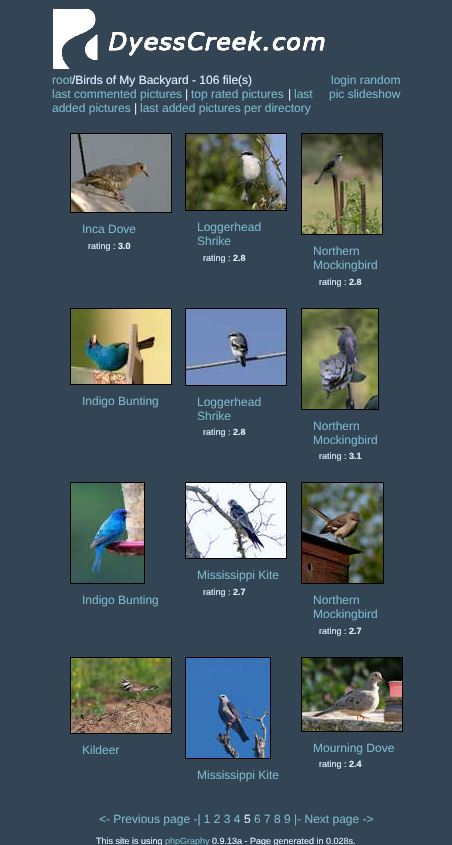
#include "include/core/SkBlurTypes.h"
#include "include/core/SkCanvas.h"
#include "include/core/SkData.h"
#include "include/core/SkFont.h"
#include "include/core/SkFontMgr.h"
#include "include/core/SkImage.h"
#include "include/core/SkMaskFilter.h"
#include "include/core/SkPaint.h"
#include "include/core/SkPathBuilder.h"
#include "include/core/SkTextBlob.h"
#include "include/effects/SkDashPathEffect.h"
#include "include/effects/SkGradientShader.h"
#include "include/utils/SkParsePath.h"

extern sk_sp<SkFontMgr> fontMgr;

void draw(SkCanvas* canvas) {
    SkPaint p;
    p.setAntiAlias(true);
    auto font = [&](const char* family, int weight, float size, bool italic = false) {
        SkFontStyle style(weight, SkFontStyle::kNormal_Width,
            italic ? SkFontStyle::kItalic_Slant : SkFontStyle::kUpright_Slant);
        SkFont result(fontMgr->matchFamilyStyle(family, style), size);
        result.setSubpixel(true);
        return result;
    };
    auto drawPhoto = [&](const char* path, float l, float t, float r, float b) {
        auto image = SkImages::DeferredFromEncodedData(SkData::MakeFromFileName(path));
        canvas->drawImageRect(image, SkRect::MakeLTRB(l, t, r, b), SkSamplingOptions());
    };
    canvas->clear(0xFF334455);
    drawPhoto("media/1.png", 53, 8, 325, 69);
    auto font1 = font("Liberation Sans", 400, 12);
    p.setColor(0xFF79B8C8);
    canvas->drawString("root", 52, 84, font1, p);
    p.setColor(0xFFDDEEFF);
    canvas->drawString("/Birds of My Backyard - 106 file(s)", 72, 84, font1, p);
    p.setColor(0xFF79B8C8);
    {
        const struct { const char* s; float x, y; } items[] = {
            {"login random", 331, 84},
            {"pic slideshow", 329, 98},
            {"last commented pictures", 52, 98},
        };
        for (auto [s, x, y] : items) {
            canvas->drawString(s, x, y, font1, p);
        }
    }
    p.setColor(0xFFDDEEFF);
    canvas->drawString("|", 185, 98, font1, p);
    p.setColor(0xFF79B8C8);
    canvas->drawString("top rated pictures", 191, 98, font1, p);
    p.setColor(0xFFDDEEFF);
    canvas->drawString("|", 288, 98, font1, p);
    p.setColor(0xFF79B8C8);
    canvas->drawString("last", 294, 98, font1, p);
    canvas->drawString("added pictures", 52, 112, font1, p);
    p.setColor(0xFFDDEEFF);
    canvas->drawString("|", 134, 112, font1, p);
    p.setColor(0xFF79B8C8);
    canvas->drawString("last added pictures per directory", 140, 112, font1, p);
    p.setStyle(SkPaint::kStroke_Style);
    p.setStrokeWidth(1);
    p.setColor(0xFF000000);
    canvas->drawRect(SkRect::MakeLTRB(70.5f, 133.5f, 171.5f, 212.5f), p);
    drawPhoto("media/2.png", 71, 134, 171, 212);
    p.setStyle(SkPaint::kFill_Style);
    p.setColor(0xFF79B8C8);
    canvas->drawString("Inca Dove", 82, 233, font1, p);
    auto font2 = font("Liberation Sans", 400, 9);
    p.setColor(0xFFDDEEFF);
    canvas->drawString("rating :", 88, 249, font2, p);
    auto font3 = font("Liberation Sans", 700, 9);
    canvas->drawString("3.0", 118, 249, font3, p);
    p.setStyle(SkPaint::kStroke_Style);
    p.setColor(0xFF000000);
    canvas->drawRect(SkRect::MakeLTRB(185.5f, 133.5f, 286.5f, 210.5f), p);
    drawPhoto("media/3.png", 186, 134, 286, 210);
    p.setStyle(SkPaint::kFill_Style);
    p.setColor(0xFF79B8C8);
    canvas->drawString("Loggerhead", 197, 231, font1, p);
    canvas->drawString("Shrike", 197, 245, font1, p);
    p.setColor(0xFFDDEEFF);
    canvas->drawString("rating :", 203, 261, font2, p);
    canvas->drawString("2.8", 233, 261, font3, p);
    p.setStyle(SkPaint::kStroke_Style);
    p.setColor(0xFF000000);
    canvas->drawRect(SkRect::MakeLTRB(301.5f, 133.5f, 382.5f, 234.5f), p);
    drawPhoto("media/4.png", 302, 134, 382, 234);
    p.setStyle(SkPaint::kFill_Style);
    p.setColor(0xFF79B8C8);
    canvas->drawString("Northern", 313, 255, font1, p);
    canvas->drawString("Mockingbird", 313, 269, font1, p);
    p.setColor(0xFFDDEEFF);
    canvas->drawString("rating :", 319, 285, font2, p);
    canvas->drawString("2.8", 349, 285, font3, p);
    p.setStyle(SkPaint::kStroke_Style);
    p.setColor(0xFF000000);
    canvas->drawRect(SkRect::MakeLTRB(70.5f, 308.5f, 171.5f, 384.5f), p);
    drawPhoto("media/5.png", 71, 309, 171, 384);
    p.setStyle(SkPaint::kFill_Style);
    p.setColor(0xFF79B8C8);
    canvas->drawString("Indigo Bunting", 82, 405, font1, p);
    p.setStyle(SkPaint::kStroke_Style);
    p.setColor(0xFF000000);
    canvas->drawRect(SkRect::MakeLTRB(185.5f, 308.5f, 286.5f, 385.5f), p);
    drawPhoto("media/6.png", 186, 309, 286, 385);
    p.setStyle(SkPaint::kFill_Style);
    p.setColor(0xFF79B8C8);
    canvas->drawString("Loggerhead", 197, 406, font1, p);
    canvas->drawString("Shrike", 197, 420, font1, p);
    p.setColor(0xFFDDEEFF);
    canvas->drawString("rating :", 203, 435, font2, p);
    canvas->drawString("2.8", 233, 435, font3, p);
    p.setStyle(SkPaint::kStroke_Style);
    p.setColor(0xFF000000);
    canvas->drawRect(SkRect::MakeLTRB(301.5f, 308.5f, 378.5f, 409.5f), p);
    drawPhoto("media/7.png", 302, 309, 378, 409);
    p.setStyle(SkPaint::kFill_Style);
    p.setColor(0xFF79B8C8);
    canvas->drawString("Northern", 313, 430, font1, p);
    canvas->drawString("Mockingbird", 313, 444, font1, p);
    p.setColor(0xFFDDEEFF);
    canvas->drawString("rating :", 319, 459, font2, p);
    canvas->drawString("3.1", 349, 459, font3, p);
    p.setStyle(SkPaint::kStroke_Style);
    p.setColor(0xFF000000);
    canvas->drawRect(SkRect::MakeLTRB(185.5f, 482.5f, 286.5f, 558.5f), p);
    drawPhoto("media/8.png", 186, 483, 286, 558);
    p.setStyle(SkPaint::kFill_Style);
    p.setColor(0xFF79B8C8);
    canvas->drawString("Mississippi Kite", 197, 579, font1, p);
    p.setColor(0xFFDDEEFF);
    canvas->drawString("rating :", 203, 595, font2, p);
    canvas->drawString("2.7", 233, 595, font3, p);
    p.setStyle(SkPaint::kStroke_Style);
    p.setColor(0xFF000000);
    canvas->drawRect(SkRect::MakeLTRB(70.5f, 482.5f, 144.5f, 583.5f), p);
    drawPhoto("media/9.png", 71, 483, 144, 583);
    p.setStyle(SkPaint::kFill_Style);
    p.setColor(0xFF79B8C8);
    canvas->drawString("Indigo Bunting", 82, 604, font1, p);
    p.setStyle(SkPaint::kStroke_Style);
    p.setColor(0xFF000000);
    canvas->drawRect(SkRect::MakeLTRB(301.5f, 482.5f, 383.5f, 583.5f), p);
    drawPhoto("media/10.png", 302, 483, 383, 583);
    p.setStyle(SkPaint::kFill_Style);
    p.setColor(0xFF79B8C8);
    canvas->drawString("Northern", 313, 604, font1, p);
    canvas->drawString("Mockingbird", 313, 618, font1, p);
    p.setColor(0xFFDDEEFF);
    canvas->drawString("rating :", 319, 634, font2, p);
    canvas->drawString("2.7", 349, 634, font3, p);
    p.setStyle(SkPaint::kStroke_Style);
    p.setColor(0xFF000000);
    canvas->drawRect(SkRect::MakeLTRB(70.5f, 657.5f, 171.5f, 733.5f), p);
    drawPhoto("media/11.png", 71, 658, 171, 733);
    p.setStyle(SkPaint::kFill_Style);
    p.setColor(0xFF79B8C8);
    canvas->drawString("Kildeer", 82, 754, font1, p);
    p.setStyle(SkPaint::kStroke_Style);
    p.setColor(0xFF000000);
    canvas->drawRect(SkRect::MakeLTRB(301.5f, 657.5f, 402.5f, 731.5f), p);
    drawPhoto("media/12.png", 302, 658, 402, 731);
    p.setStyle(SkPaint::kFill_Style);
    p.setColor(0xFF79B8C8);
    canvas->drawString("Mourning Dove", 313, 752, font1, p);
    p.setColor(0xFFDDEEFF);
    canvas->drawString("rating :", 319, 767, font2, p);
    canvas->drawString("2.4", 349, 767, font3, p);
    p.setStyle(SkPaint::kStroke_Style);
    p.setColor(0xFF000000);
    canvas->drawRect(SkRect::MakeLTRB(185.5f, 657.5f, 270.5f, 758.5f), p);
    drawPhoto("media/13.png", 186, 658, 270, 758);
    p.setStyle(SkPaint::kFill_Style);
    p.setColor(0xFF79B8C8);
    canvas->drawString("Mississippi Kite", 197, 779, font1, p);
    canvas->drawString("<- Previous page -| 1 2 3 4", 99, 823, font1, p);
    p.setColor(0xFFDDEEFF);
    canvas->drawString("5", 244, 823, font1, p);
    p.setColor(0xFF79B8C8);
    canvas->drawString("6 7 8 9 |- Next page ->", 254, 823, font1, p);
    p.setColor(0xFFDDEEFF);
    canvas->drawString("This site is using", 96, 844, font2, p);
    p.setColor(0xFF79B8C8);
    canvas->drawString("phpGraphy", 165, 844, font2, p);
    p.setColor(0xFFDDEEFF);
    canvas->drawString("0.9.13a - Page generated in 0.028s.", 212, 844, font2, p);
}
